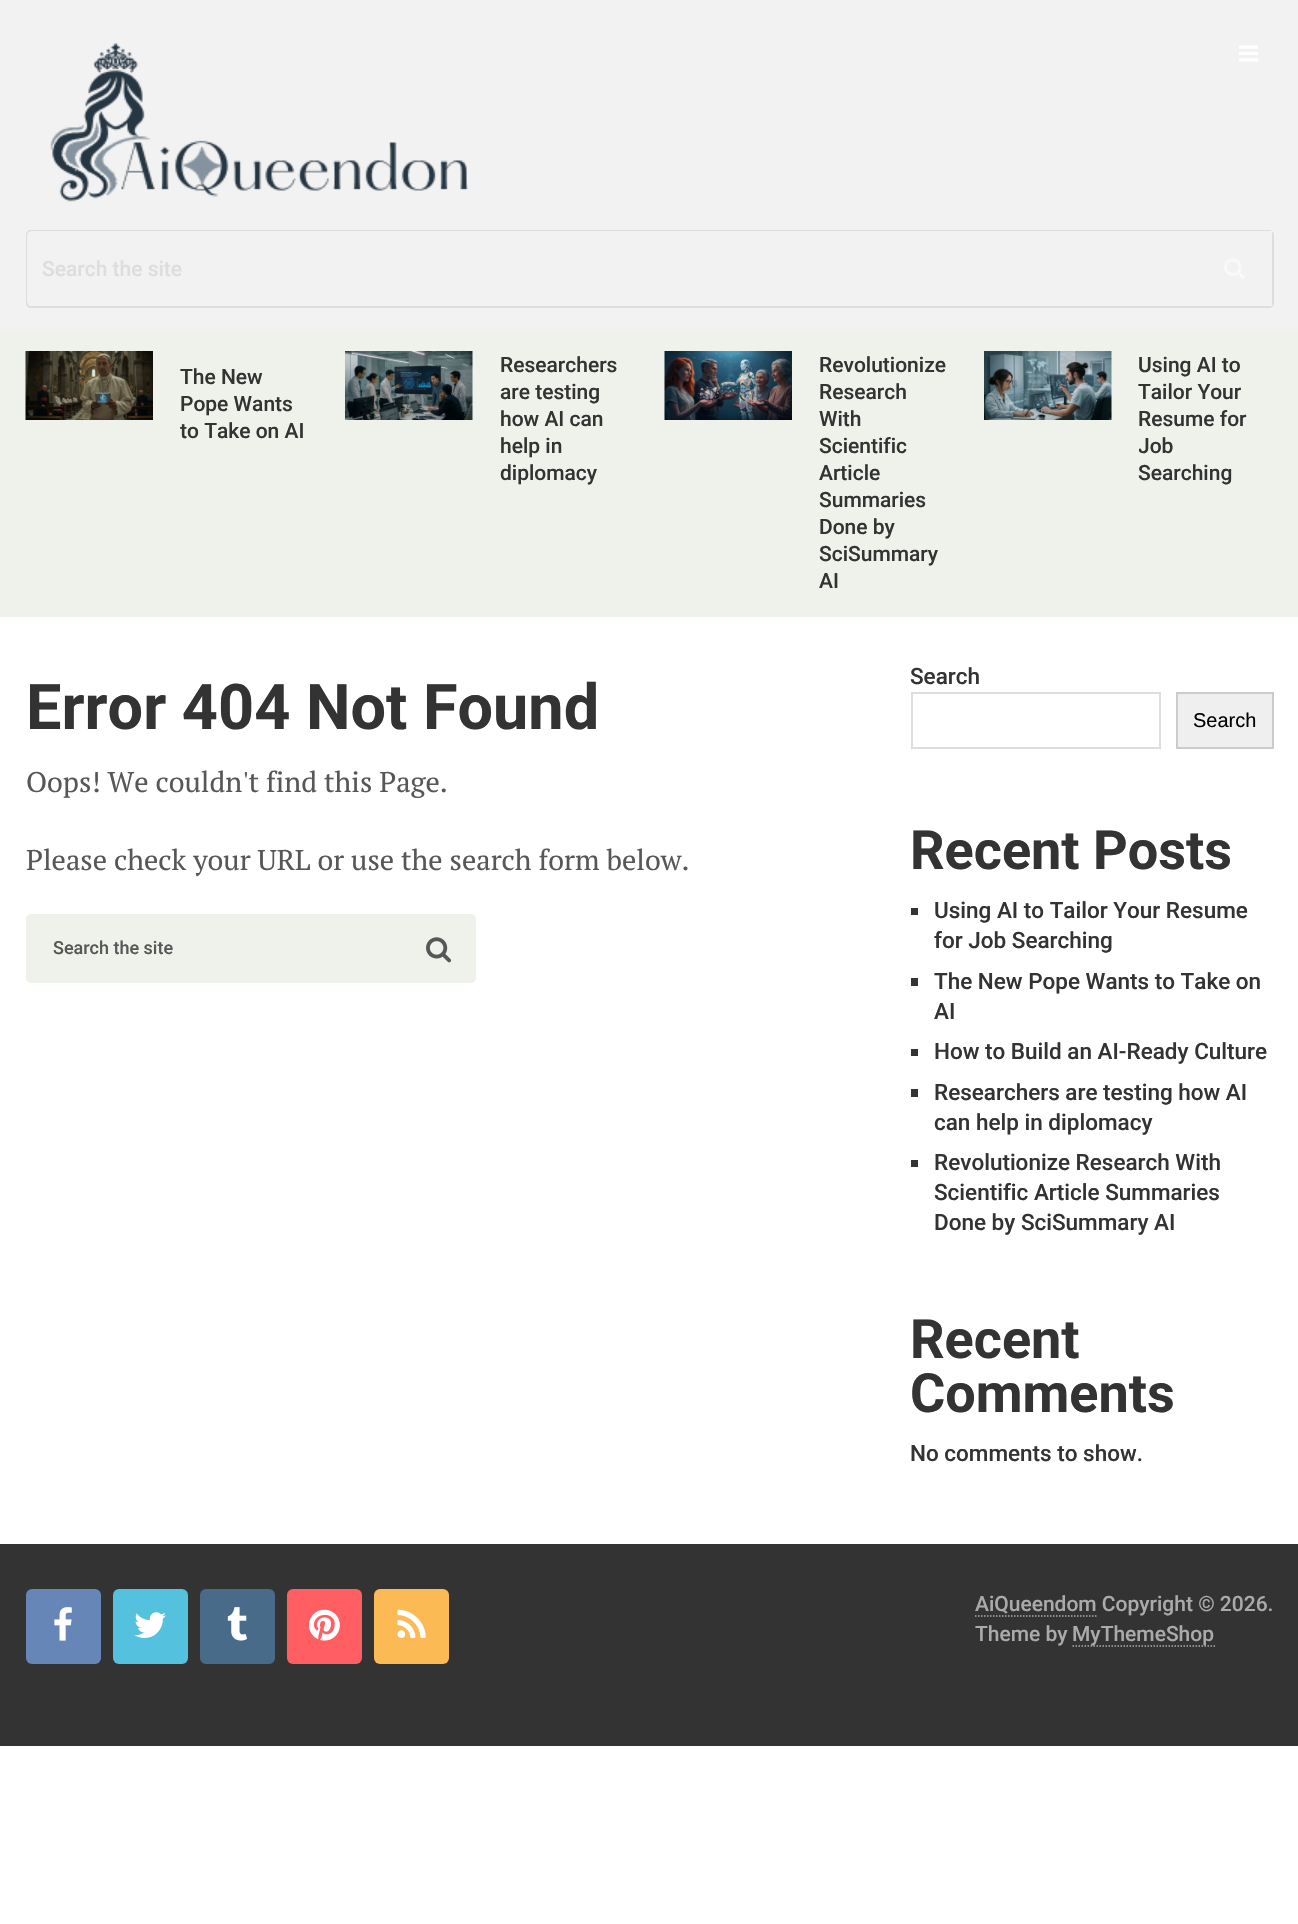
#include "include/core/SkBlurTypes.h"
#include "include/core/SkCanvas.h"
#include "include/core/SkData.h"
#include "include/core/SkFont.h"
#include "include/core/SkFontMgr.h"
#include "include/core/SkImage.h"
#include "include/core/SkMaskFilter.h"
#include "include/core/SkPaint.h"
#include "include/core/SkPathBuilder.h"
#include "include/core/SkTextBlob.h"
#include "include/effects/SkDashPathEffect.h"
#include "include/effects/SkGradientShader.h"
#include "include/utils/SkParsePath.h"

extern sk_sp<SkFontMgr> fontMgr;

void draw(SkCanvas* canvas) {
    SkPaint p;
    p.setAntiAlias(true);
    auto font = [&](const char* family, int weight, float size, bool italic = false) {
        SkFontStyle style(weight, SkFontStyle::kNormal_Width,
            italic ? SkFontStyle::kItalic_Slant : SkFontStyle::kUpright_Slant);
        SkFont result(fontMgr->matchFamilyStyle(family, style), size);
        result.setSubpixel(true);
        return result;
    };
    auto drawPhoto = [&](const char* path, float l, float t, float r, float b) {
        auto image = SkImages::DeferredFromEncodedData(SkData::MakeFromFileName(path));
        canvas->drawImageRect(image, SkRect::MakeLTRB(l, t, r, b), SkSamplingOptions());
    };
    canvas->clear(0xFFFFFFFF);
    p.setColor(0xFFF2F2F2);
    canvas->drawRect(SkRect::MakeLTRB(0, 0, 1298, 329), p);
    drawPhoto("media/1.png", 50, 43, 469, 202);
    drawPhoto("media/2.png", 1239, 45, 1258, 62);
    p.setStyle(SkPaint::kStroke_Style);
    p.setStrokeWidth(2);
    p.setColor(0xFFDDDDDD);
    canvas->drawRoundRect(SkRect::MakeLTRB(27, 231, 1273, 307), 4, 4, p);
    p.setStyle(SkPaint::kFill_Style);
    p.setColor(0xFFF2F2F2);
    canvas->drawRoundRect(SkRect::MakeLTRB(27, 231, 1272, 306), 5, 5, p);
    auto font1 = font("Roboto", 500, 21);
    p.setColor(0xFFDDDDDD);
    canvas->drawString("Search the site", 42, 276, font1, p);
    p.setColor(0xFFF2F2F2);
    canvas->drawRect(SkRect::MakeLTRB(1268, 231, 1272, 306), p);
    drawPhoto("media/3.png", 1224, 258, 1245, 279);
    p.setColor(0xFFEFF2EB);
    canvas->drawRect(SkRect::MakeLTRB(0, 329, 1298, 617), p);
    drawPhoto("media/4.png", 25, 351, 153, 420);
    p.setColor(0xFF333333);
    {
        const struct { const char* s; float x, y; } items[] = {
            {"The New", 180, 384},
            {"Pope Wants", 180, 411},
            {"to Take on AI", 180, 438},
        };
        for (auto [s, x, y] : items) {
            canvas->drawString(s, x, y, font1, p);
        }
    }
    drawPhoto("media/5.png", 345, 351, 473, 420);
    {
        const struct { const char* s; float x, y; } items[] = {
            {"Researchers", 500, 372},
            {"are testing", 500, 399},
            {"how AI can", 500, 426},
            {"help in", 500, 453},
            {"diplomacy", 500, 480},
        };
        for (auto [s, x, y] : items) {
            canvas->drawString(s, x, y, font1, p);
        }
    }
    drawPhoto("media/6.png", 664, 351, 792, 420);
    {
        const struct { const char* s; float x, y; } items[] = {
            {"Revolutionize", 819, 372},
            {"Research", 819, 399},
            {"With", 819, 426},
            {"Scientific", 819, 453},
            {"Article", 819, 480},
            {"Summaries", 819, 507},
            {"Done by", 819, 534},
            {"SciSummary", 819, 561},
            {"AI", 819, 588},
        };
        for (auto [s, x, y] : items) {
            canvas->drawString(s, x, y, font1, p);
        }
    }
    drawPhoto("media/7.png", 984, 351, 1112, 420);
    {
        const struct { const char* s; float x, y; } items[] = {
            {"Using AI to", 1138, 372},
            {"Tailor Your", 1138, 399},
            {"Resume for", 1138, 426},
        };
        for (auto [s, x, y] : items) {
            canvas->drawString(s, x, y, font1, p);
        }
    }
    canvas->save();
    canvas->clipRect(SkRect::MakeLTRB(1139, 351, 1274, 486));
    canvas->drawString("Job", 1138, 453, font1, p);
    canvas->restore();
    canvas->drawString("Searching", 1138, 480, font1, p);
    auto font2 = font("Roboto", 700, 63);
    canvas->drawString("Error 404 Not Found", 26, 729, font2, p);
    auto font3 = font("PT Serif", 400, 28.5f);
    p.setColor(0xFF575757);
    canvas->drawString("Oops! We couldn't find this Page.", 26, 792, font3, p);
    canvas->drawString("Please check your URL or use the search form below.", 26, 870, font3, p);
    p.setColor(0xFFEFF2EB);
    canvas->drawRoundRect(SkRect::MakeLTRB(26, 914, 476, 983), 5, 5, p);
    auto font4 = font("Roboto", 500, 18);
    p.setColor(0xFF575757);
    canvas->drawString("Search the site", 53, 954, font4, p);
    drawPhoto("media/8.png", 426, 937, 451, 963);
    auto font5 = font("Roboto", 500, 22.5f);
    p.setColor(0xFF333333);
    canvas->drawString("Search", 910, 684, font5, p);
    p.setStyle(SkPaint::kStroke_Style);
    p.setColor(0xFFDDDDDD);
    canvas->drawRect(SkRect::MakeLTRB(912, 693, 1160, 748), p);
    p.setStyle(SkPaint::kFill_Style);
    p.setColor(0xFFEFEFEF);
    canvas->drawRect(SkRect::MakeLTRB(1177, 693, 1273, 748), p);
    p.setStyle(SkPaint::kStroke_Style);
    p.setColor(0xFFCCCCCC);
    canvas->drawRect(SkRect::MakeLTRB(1177, 693, 1273, 748), p);
    auto font6 = font("Liberation Sans", 400, 20);
    p.setStyle(SkPaint::kFill_Style);
    p.setColor(0xFF000000);
    canvas->drawString("Search", 1193, 727, font6, p);
    auto font7 = font("Roboto", 700, 54);
    p.setColor(0xFF333333);
    canvas->drawString("Recent Posts", 910, 869, font7, p);
    canvas->drawRect(SkRect::MakeLTRB(911, 908, 918, 915), p);
    canvas->drawString("Using AI to Tailor Your Resume", 934, 918, font5, p);
    canvas->drawString("for Job Searching", 934, 948, font5, p);
    canvas->drawRect(SkRect::MakeLTRB(911, 978, 918, 986), p);
    canvas->drawString("The New Pope Wants to Take on", 934, 989, font5, p);
    canvas->drawString("AI", 934, 1019, font5, p);
    canvas->drawRect(SkRect::MakeLTRB(911, 1049, 918, 1056), p);
    canvas->drawString("How to Build an AI-Ready Culture", 934, 1059, font5, p);
    canvas->drawRect(SkRect::MakeLTRB(911, 1089, 918, 1097), p);
    canvas->drawString("Researchers are testing how AI", 934, 1100, font5, p);
    canvas->drawString("can help in diplomacy", 934, 1130, font5, p);
    canvas->drawRect(SkRect::MakeLTRB(911, 1160, 918, 1167), p);
    {
        const struct { const char* s; float x, y; } items[] = {
            {"Revolutionize Research With", 934, 1170},
            {"Scientific Article Summaries", 934, 1200},
            {"Done by SciSummary AI", 934, 1230},
        };
        for (auto [s, x, y] : items) {
            canvas->drawString(s, x, y, font5, p);
        }
    }
    canvas->drawString("Recent", 910, 1358, font7, p);
    canvas->drawString("Comments", 910, 1412, font7, p);
    canvas->drawString("No comments to show.", 910, 1461, font5, p);
    canvas->drawRect(SkRect::MakeLTRB(0, 1544, 1298, 1746), p);
    p.setColor(0xFF6686B7);
    canvas->drawRoundRect(SkRect::MakeLTRB(26, 1589, 101, 1664), 6, 6, p);
    drawPhoto("media/9.png", 54, 1607, 72, 1641);
    p.setColor(0xFF54C1DE);
    canvas->drawRoundRect(SkRect::MakeLTRB(113, 1589, 188, 1664), 6, 6, p);
    drawPhoto("media/10.png", 134, 1612, 166, 1638);
    p.setColor(0xFF476B89);
    canvas->drawRoundRect(SkRect::MakeLTRB(200, 1589, 275, 1664), 6, 6, p);
    drawPhoto("media/11.png", 227, 1607, 247, 1641);
    p.setColor(0xFFFF5E63);
    canvas->drawRoundRect(SkRect::MakeLTRB(287, 1589, 362, 1664), 6, 6, p);
    drawPhoto("media/12.png", 309, 1609, 340, 1641);
    p.setColor(0xFFFCBA55);
    canvas->drawRoundRect(SkRect::MakeLTRB(374, 1589, 449, 1664), 6, 6, p);
    drawPhoto("media/13.png", 397, 1609, 426, 1638);
    p.setStyle(SkPaint::kStroke_Style);
    p.setStrokeWidth(1.5f);
    p.setColor(0xFFAAAAAA);
    p.setPathEffect(SkDashPathEffect::Make({{1.5f, 1.5f}}, 0));
    canvas->drawPath(SkPathBuilder().moveTo(975, 1616).lineTo(1096.5f, 1616).detach(), p);
    p.setPathEffect(nullptr);
    p.setStyle(SkPaint::kFill_Style);
    canvas->drawString("AiQueendom Copyright © 2026.", 975, 1611, font1, p);
    canvas->drawString("Theme by", 975, 1641, font1, p);
    p.setStyle(SkPaint::kStroke_Style);
    p.setPathEffect(SkDashPathEffect::Make({{1.5f, 1.5f}}, 0));
    canvas->drawPath(SkPathBuilder().moveTo(1072.5f, 1646).lineTo(1215, 1646).detach(), p);
    p.setPathEffect(nullptr);
    p.setStyle(SkPaint::kFill_Style);
    canvas->drawString("MyThemeShop", 1072, 1641, font1, p);
}
